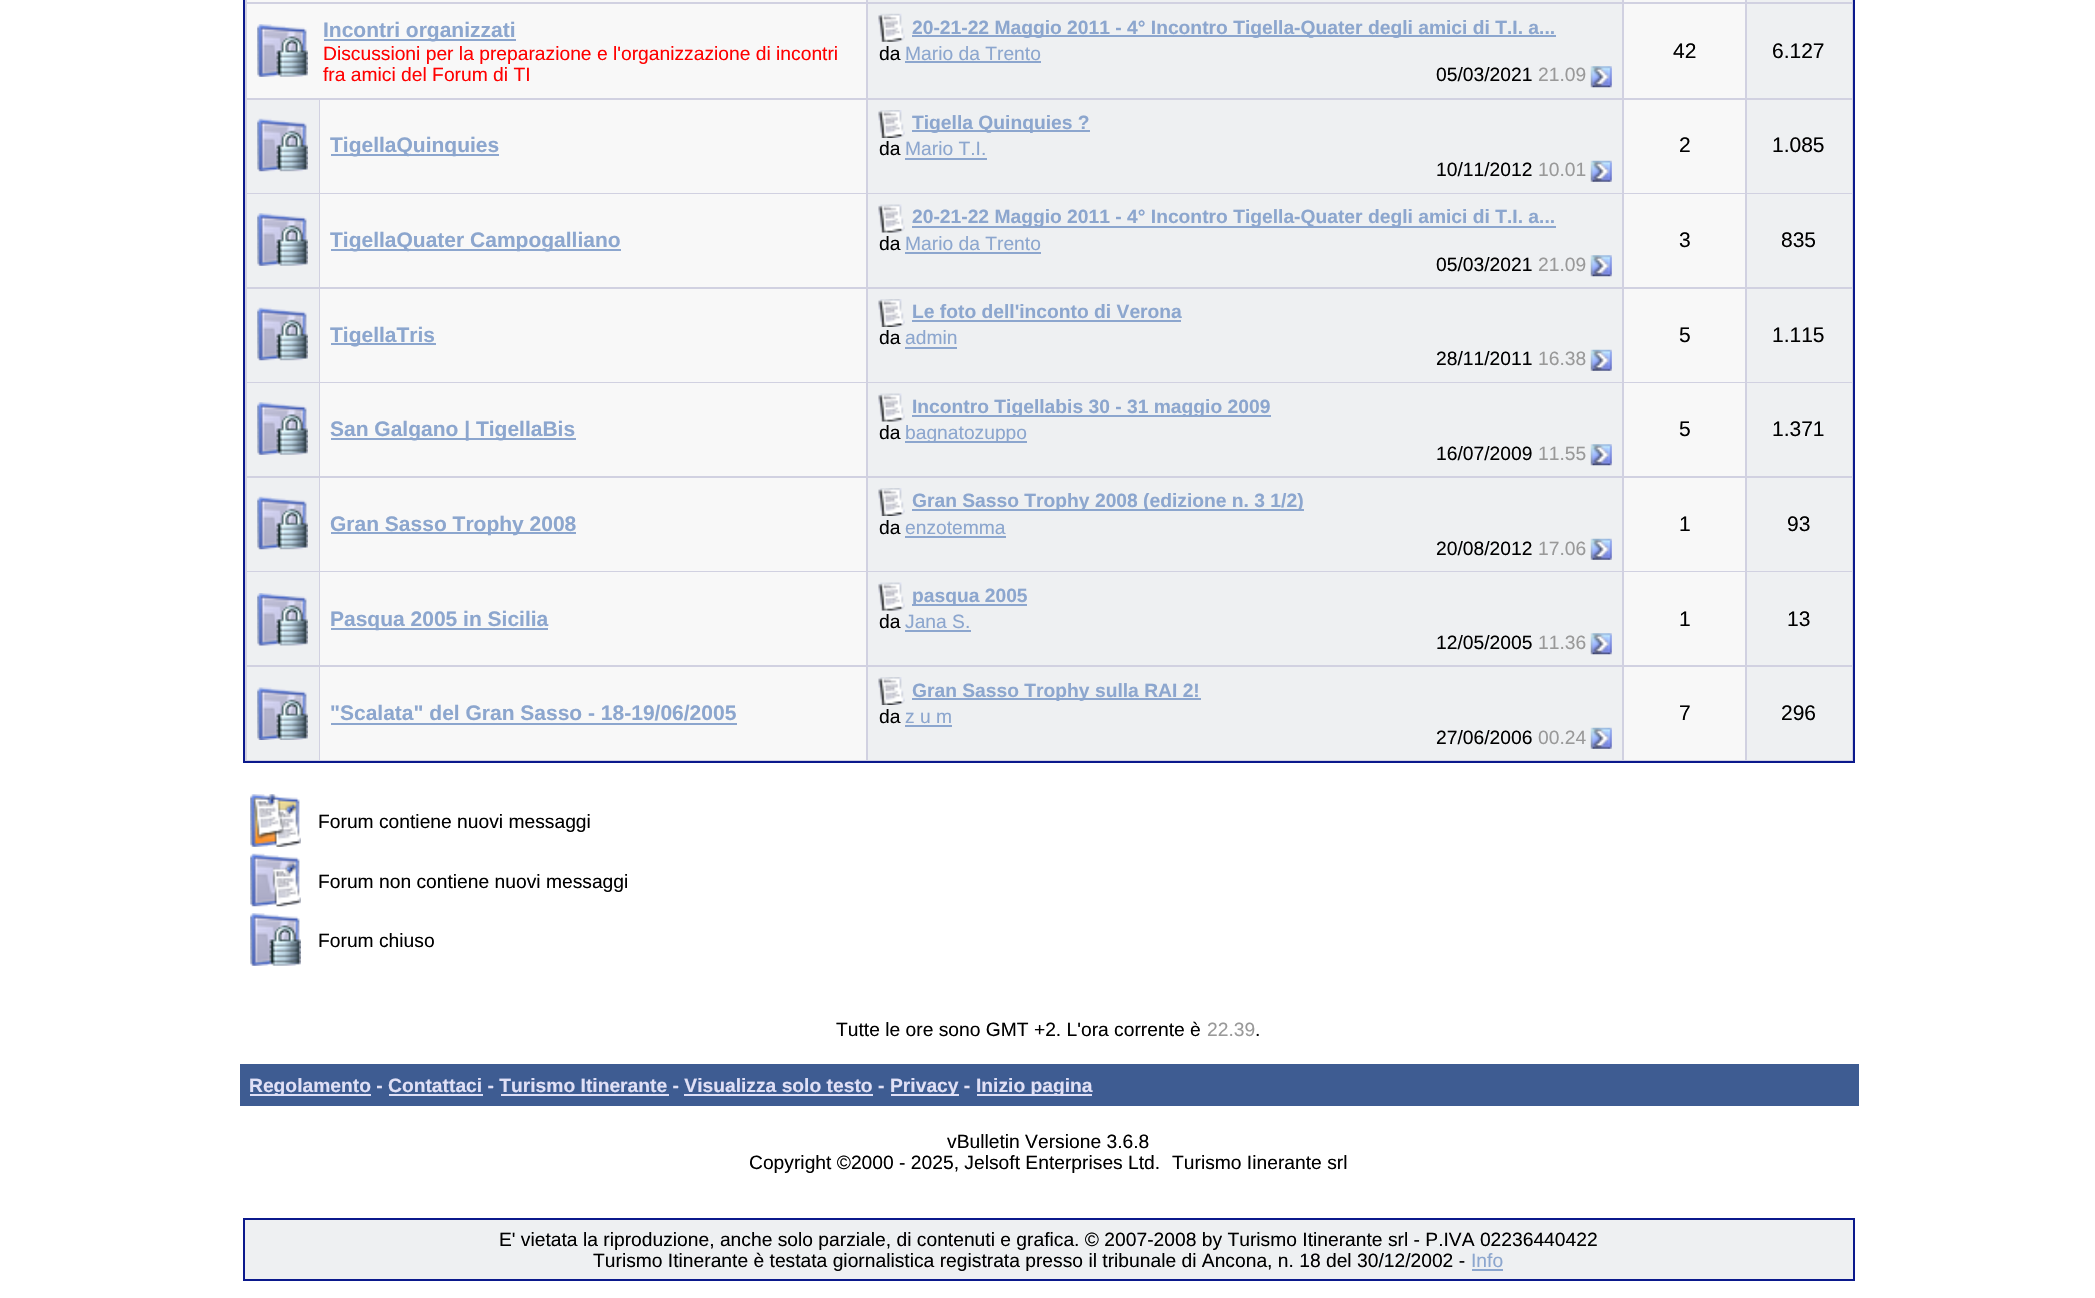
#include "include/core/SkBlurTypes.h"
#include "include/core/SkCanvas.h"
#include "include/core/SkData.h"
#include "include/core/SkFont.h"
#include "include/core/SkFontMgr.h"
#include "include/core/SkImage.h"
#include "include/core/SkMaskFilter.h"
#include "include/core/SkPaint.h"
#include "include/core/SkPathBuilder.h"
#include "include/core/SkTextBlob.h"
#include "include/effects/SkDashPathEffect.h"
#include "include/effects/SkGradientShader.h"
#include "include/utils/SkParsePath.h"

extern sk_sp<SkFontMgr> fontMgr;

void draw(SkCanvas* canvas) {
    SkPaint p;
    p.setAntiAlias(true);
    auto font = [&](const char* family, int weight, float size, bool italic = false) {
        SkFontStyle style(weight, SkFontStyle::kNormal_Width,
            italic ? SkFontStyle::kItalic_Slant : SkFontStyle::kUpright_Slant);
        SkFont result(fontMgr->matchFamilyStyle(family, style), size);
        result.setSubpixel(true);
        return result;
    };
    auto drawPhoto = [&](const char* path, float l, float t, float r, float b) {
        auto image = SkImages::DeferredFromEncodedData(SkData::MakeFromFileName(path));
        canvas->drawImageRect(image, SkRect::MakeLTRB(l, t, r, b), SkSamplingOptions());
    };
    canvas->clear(0xFFFFFFFF);
    p.setColor(0xFFD1D1E1);
    canvas->drawRect(SkRect::MakeLTRB(244, -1, 1854, 762), p);
    p.setStyle(SkPaint::kStroke_Style);
    p.setStrokeWidth(2);
    p.setColor(0xFF0B198C);
    canvas->drawRect(SkRect::MakeLTRB(244, -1, 1854, 762), p);
    p.setStyle(SkPaint::kFill_Style);
    {
        const struct { float l, t, r, b; SkColor color; } items[] = {
            {247, 0, 866, 2, 0xFFF8F8F8},
            {868, 0, 1622, 2, 0xFFEEF0F2},
            {1624, 0, 1745, 2, 0xFFF8F8F8},
            {1747, 0, 1852, 2, 0xFFEEF0F2},
            {247, 4, 866, 98, 0xFFF8F8F8},
        };
        for (auto [l, t, r, b, color] : items) {
            p.setColor(color);
            canvas->drawRect(SkRect::MakeLTRB(l, t, r, b), p);
        }
    }
    drawPhoto("media/1.png", 257, 24, 308, 77);
    p.setColor(0xFF8CA6CE);
    canvas->drawRect(SkRect::MakeLTRB(324, 39, 516, 41), p);
    auto font1 = font("Liberation Sans", 700, 21);
    canvas->drawString("Incontri organizzati", 323, 37, font1, p);
    auto font2 = font("Liberation Sans", 400, 19.25f);
    p.setColor(0xFFFF0000);
    canvas->drawString("Discussioni per la preparazione e l'organizzazione di incontri", 323, 60, font2, p);
    canvas->drawString("fra amici del Forum di TI", 323, 81, font2, p);
    p.setColor(0xFFEEF0F2);
    canvas->drawRect(SkRect::MakeLTRB(868, 4, 1622, 98), p);
    drawPhoto("media/2.png", 878, 13, 905, 42);
    p.setColor(0xFF8CA6CE);
    canvas->drawRect(SkRect::MakeLTRB(912, 35, 1556, 37), p);
    auto font3 = font("Liberation Sans", 700, 19.25f);
    canvas->drawString("20-21-22 Maggio 2011 - 4° Incontro Tigella-Quater degli amici di T.I. a...", 912, 34, font3, p);
    p.setColor(0xFF000000);
    canvas->drawString("da", 879, 60, font2, p);
    p.setColor(0xFF8CA6CE);
    canvas->drawString("Mario da Trento", 905, 60, font2, p);
    canvas->drawRect(SkRect::MakeLTRB(905, 61, 1041, 63), p);
    p.setColor(0xFF000000);
    canvas->drawString("05/03/2021", 1436, 81, font2, p);
    p.setColor(0xFF999999);
    canvas->drawString("21.09", 1538, 81, font2, p);
    drawPhoto("media/3.png", 1590, 66, 1612, 88);
    p.setColor(0xFFF8F8F8);
    canvas->drawRect(SkRect::MakeLTRB(1624, 4, 1745, 98), p);
    auto font4 = font("Liberation Sans", 400, 21);
    p.setColor(0xFF000000);
    canvas->drawString("42", 1673, 58, font4, p);
    p.setColor(0xFFEEF0F2);
    canvas->drawRect(SkRect::MakeLTRB(1747, 4, 1852, 98), p);
    p.setColor(0xFF000000);
    canvas->drawString("6.127", 1772, 58, font4, p);
    p.setColor(0xFFEEF0F2);
    canvas->drawRect(SkRect::MakeLTRB(247, 100, 319, 193), p);
    drawPhoto("media/4.png", 257, 118, 308, 172);
    p.setColor(0xFFF8F8F8);
    canvas->drawRect(SkRect::MakeLTRB(320, 100, 866, 193), p);
    p.setColor(0xFF8CA6CE);
    canvas->drawRect(SkRect::MakeLTRB(331, 154, 499, 156), p);
    canvas->drawString("TigellaQuinquies", 330, 152, font1, p);
    p.setColor(0xFFEEF0F2);
    canvas->drawRect(SkRect::MakeLTRB(868, 100, 1622, 193), p);
    drawPhoto("media/5.png", 878, 110, 905, 138);
    p.setColor(0xFF8CA6CE);
    canvas->drawRect(SkRect::MakeLTRB(912, 130, 1090, 132), p);
    canvas->drawString("Tigella Quinquies ?", 912, 129, font3, p);
    p.setColor(0xFF000000);
    canvas->drawString("da", 879, 155, font2, p);
    p.setColor(0xFF8CA6CE);
    canvas->drawString("Mario T.I.", 905, 155, font2, p);
    canvas->drawRect(SkRect::MakeLTRB(905, 158, 987, 160), p);
    p.setColor(0xFF000000);
    canvas->drawString("10/11/2012", 1436, 176, font2, p);
    p.setColor(0xFF999999);
    canvas->drawString("10.01", 1538, 176, font2, p);
    drawPhoto("media/6.png", 1590, 160, 1612, 182);
    p.setColor(0xFFF8F8F8);
    canvas->drawRect(SkRect::MakeLTRB(1624, 100, 1745, 193), p);
    p.setColor(0xFF000000);
    canvas->drawString("2", 1679, 152, font4, p);
    p.setColor(0xFFEEF0F2);
    canvas->drawRect(SkRect::MakeLTRB(1747, 100, 1852, 193), p);
    p.setColor(0xFF000000);
    canvas->drawString("1.085", 1772, 152, font4, p);
    p.setColor(0xFFEEF0F2);
    canvas->drawRect(SkRect::MakeLTRB(247, 194, 319, 287), p);
    drawPhoto("media/7.png", 257, 213, 308, 266);
    p.setColor(0xFFF8F8F8);
    canvas->drawRect(SkRect::MakeLTRB(320, 194, 866, 287), p);
    p.setColor(0xFF8CA6CE);
    canvas->drawRect(SkRect::MakeLTRB(331, 249, 621, 251), p);
    canvas->drawString("TigellaQuater Campogalliano", 330, 247, font1, p);
    p.setColor(0xFFEEF0F2);
    canvas->drawRect(SkRect::MakeLTRB(868, 194, 1622, 287), p);
    drawPhoto("media/8.png", 878, 204, 905, 233);
    p.setColor(0xFF8CA6CE);
    canvas->drawRect(SkRect::MakeLTRB(912, 226, 1556, 228), p);
    canvas->drawString("20-21-22 Maggio 2011 - 4° Incontro Tigella-Quater degli amici di T.I. a...", 912, 223, font3, p);
    p.setColor(0xFF000000);
    canvas->drawString("da", 879, 250, font2, p);
    p.setColor(0xFF8CA6CE);
    canvas->drawString("Mario da Trento", 905, 250, font2, p);
    canvas->drawRect(SkRect::MakeLTRB(905, 252, 1041, 254), p);
    p.setColor(0xFF000000);
    canvas->drawString("05/03/2021", 1436, 271, font2, p);
    p.setColor(0xFF999999);
    canvas->drawString("21.09", 1538, 271, font2, p);
    drawPhoto("media/3.png", 1590, 255, 1612, 277);
    p.setColor(0xFFF8F8F8);
    canvas->drawRect(SkRect::MakeLTRB(1624, 194, 1745, 287), p);
    p.setColor(0xFF000000);
    canvas->drawString("3", 1679, 247, font4, p);
    p.setColor(0xFFEEF0F2);
    canvas->drawRect(SkRect::MakeLTRB(1747, 194, 1852, 287), p);
    p.setColor(0xFF000000);
    canvas->drawString("835", 1781, 247, font4, p);
    p.setColor(0xFFEEF0F2);
    canvas->drawRect(SkRect::MakeLTRB(247, 289, 319, 382), p);
    drawPhoto("media/4.png", 257, 307, 308, 361);
    p.setColor(0xFFF8F8F8);
    canvas->drawRect(SkRect::MakeLTRB(320, 289, 866, 382), p);
    p.setColor(0xFF8CA6CE);
    canvas->drawRect(SkRect::MakeLTRB(331, 343, 436, 345), p);
    canvas->drawString("TigellaTris", 330, 342, font1, p);
    p.setColor(0xFFEEF0F2);
    canvas->drawRect(SkRect::MakeLTRB(868, 289, 1622, 382), p);
    drawPhoto("media/5.png", 878, 299, 905, 327);
    p.setColor(0xFF8CA6CE);
    canvas->drawString("Le foto dell'inconto di Verona", 912, 318, font3, p);
    canvas->drawRect(SkRect::MakeLTRB(912, 320, 1181, 322), p);
    p.setColor(0xFF000000);
    canvas->drawString("da", 879, 344, font2, p);
    p.setColor(0xFF8CA6CE);
    canvas->drawString("admin", 905, 344, font2, p);
    canvas->drawRect(SkRect::MakeLTRB(905, 347, 957, 349), p);
    p.setColor(0xFF000000);
    canvas->drawString("28/11/2011", 1436, 365, font2, p);
    p.setColor(0xFF999999);
    canvas->drawString("16.38", 1538, 365, font2, p);
    drawPhoto("media/6.png", 1590, 349, 1612, 371);
    p.setColor(0xFFF8F8F8);
    canvas->drawRect(SkRect::MakeLTRB(1624, 289, 1745, 382), p);
    p.setColor(0xFF000000);
    canvas->drawString("5", 1679, 342, font4, p);
    p.setColor(0xFFEEF0F2);
    canvas->drawRect(SkRect::MakeLTRB(1747, 289, 1852, 382), p);
    p.setColor(0xFF000000);
    canvas->drawString("1.115", 1772, 342, font4, p);
    p.setColor(0xFFEEF0F2);
    canvas->drawRect(SkRect::MakeLTRB(247, 383, 319, 476), p);
    drawPhoto("media/7.png", 257, 402, 308, 455);
    p.setColor(0xFFF8F8F8);
    canvas->drawRect(SkRect::MakeLTRB(320, 383, 866, 476), p);
    p.setColor(0xFF8CA6CE);
    canvas->drawRect(SkRect::MakeLTRB(331, 438, 576, 440), p);
    canvas->drawString("San Galgano | TigellaBis", 330, 436, font1, p);
    p.setColor(0xFFEEF0F2);
    canvas->drawRect(SkRect::MakeLTRB(868, 383, 1622, 476), p);
    drawPhoto("media/8.png", 878, 393, 905, 422);
    p.setColor(0xFF8CA6CE);
    canvas->drawRect(SkRect::MakeLTRB(912, 415, 1271, 417), p);
    canvas->drawString("Incontro Tigellabis 30 - 31 maggio 2009", 912, 413, font3, p);
    p.setColor(0xFF000000);
    canvas->drawString("da", 879, 439, font2, p);
    p.setColor(0xFF8CA6CE);
    canvas->drawRect(SkRect::MakeLTRB(905, 441, 1027, 443), p);
    canvas->drawString("bagnatozuppo", 905, 439, font2, p);
    p.setColor(0xFF000000);
    canvas->drawString("16/07/2009", 1436, 460, font2, p);
    p.setColor(0xFF999999);
    canvas->drawString("11.55", 1538, 460, font2, p);
    drawPhoto("media/3.png", 1590, 444, 1612, 466);
    p.setColor(0xFFF8F8F8);
    canvas->drawRect(SkRect::MakeLTRB(1624, 383, 1745, 476), p);
    p.setColor(0xFF000000);
    canvas->drawString("5", 1679, 436, font4, p);
    p.setColor(0xFFEEF0F2);
    canvas->drawRect(SkRect::MakeLTRB(1747, 383, 1852, 476), p);
    p.setColor(0xFF000000);
    canvas->drawString("1.371", 1772, 436, font4, p);
    p.setColor(0xFFEEF0F2);
    canvas->drawRect(SkRect::MakeLTRB(247, 478, 319, 571), p);
    drawPhoto("media/4.png", 257, 496, 308, 550);
    p.setColor(0xFFF8F8F8);
    canvas->drawRect(SkRect::MakeLTRB(320, 478, 866, 571), p);
    p.setColor(0xFF8CA6CE);
    canvas->drawRect(SkRect::MakeLTRB(331, 532, 576, 534), p);
    canvas->drawString("Gran Sasso Trophy 2008", 330, 531, font1, p);
    p.setColor(0xFFEEF0F2);
    canvas->drawRect(SkRect::MakeLTRB(868, 478, 1622, 571), p);
    drawPhoto("media/5.png", 878, 488, 905, 516);
    p.setColor(0xFF8CA6CE);
    canvas->drawRect(SkRect::MakeLTRB(912, 509, 1304, 511), p);
    canvas->drawString("Gran Sasso Trophy 2008 (edizione n. 3 1/2)", 912, 507, font3, p);
    p.setColor(0xFF000000);
    canvas->drawString("da", 879, 534, font2, p);
    p.setColor(0xFF8CA6CE);
    canvas->drawString("enzotemma", 905, 534, font2, p);
    canvas->drawRect(SkRect::MakeLTRB(905, 536, 1006, 538), p);
    p.setColor(0xFF000000);
    canvas->drawString("20/08/2012", 1436, 555, font2, p);
    p.setColor(0xFF999999);
    canvas->drawString("17.06", 1538, 555, font2, p);
    drawPhoto("media/6.png", 1590, 538, 1612, 560);
    p.setColor(0xFFF8F8F8);
    canvas->drawRect(SkRect::MakeLTRB(1624, 478, 1745, 571), p);
    p.setColor(0xFF000000);
    canvas->drawString("1", 1679, 531, font4, p);
    p.setColor(0xFFEEF0F2);
    canvas->drawRect(SkRect::MakeLTRB(1747, 478, 1852, 571), p);
    p.setColor(0xFF000000);
    canvas->drawString("93", 1787, 531, font4, p);
    p.setColor(0xFFEEF0F2);
    canvas->drawRect(SkRect::MakeLTRB(247, 572, 319, 665), p);
    drawPhoto("media/9.png", 257, 593, 308, 646);
    p.setColor(0xFFF8F8F8);
    canvas->drawRect(SkRect::MakeLTRB(320, 572, 866, 665), p);
    p.setColor(0xFF8CA6CE);
    canvas->drawRect(SkRect::MakeLTRB(331, 628, 548, 630), p);
    canvas->drawString("Pasqua 2005 in Sicilia", 330, 626, font1, p);
    p.setColor(0xFFEEF0F2);
    canvas->drawRect(SkRect::MakeLTRB(868, 572, 1622, 665), p);
    drawPhoto("media/8.png", 878, 582, 905, 611);
    p.setColor(0xFF8CA6CE);
    canvas->drawRect(SkRect::MakeLTRB(912, 604, 1027, 606), p);
    canvas->drawString("pasqua 2005", 912, 602, font3, p);
    p.setColor(0xFF000000);
    canvas->drawString("da", 879, 628, font2, p);
    p.setColor(0xFF8CA6CE);
    canvas->drawString("Jana S.", 905, 628, font2, p);
    canvas->drawRect(SkRect::MakeLTRB(905, 630, 971, 632), p);
    p.setColor(0xFF000000);
    canvas->drawString("12/05/2005", 1436, 649, font2, p);
    p.setColor(0xFF999999);
    canvas->drawString("11.36", 1538, 649, font2, p);
    drawPhoto("media/3.png", 1590, 633, 1612, 655);
    p.setColor(0xFFF8F8F8);
    canvas->drawRect(SkRect::MakeLTRB(1624, 572, 1745, 665), p);
    p.setColor(0xFF000000);
    canvas->drawString("1", 1679, 626, font4, p);
    p.setColor(0xFFEEF0F2);
    canvas->drawRect(SkRect::MakeLTRB(1747, 572, 1852, 665), p);
    p.setColor(0xFF000000);
    canvas->drawString("13", 1787, 626, font4, p);
    p.setColor(0xFFEEF0F2);
    canvas->drawRect(SkRect::MakeLTRB(247, 667, 319, 760), p);
    drawPhoto("media/10.png", 257, 687, 308, 740);
    p.setColor(0xFFF8F8F8);
    canvas->drawRect(SkRect::MakeLTRB(320, 667, 866, 760), p);
    p.setColor(0xFF8CA6CE);
    canvas->drawString("\"Scalata\" del Gran Sasso - 18-19/06/2005", 330, 720, font1, p);
    canvas->drawRect(SkRect::MakeLTRB(331, 723, 737, 725), p);
    p.setColor(0xFFEEF0F2);
    canvas->drawRect(SkRect::MakeLTRB(868, 667, 1622, 760), p);
    drawPhoto("media/5.png", 878, 677, 905, 705);
    p.setColor(0xFF8CA6CE);
    canvas->drawRect(SkRect::MakeLTRB(912, 698, 1201, 700), p);
    canvas->drawString("Gran Sasso Trophy sulla RAI 2!", 912, 697, font3, p);
    p.setColor(0xFF000000);
    canvas->drawString("da", 879, 723, font2, p);
    p.setColor(0xFF8CA6CE);
    canvas->drawString("z u m", 905, 723, font2, p);
    canvas->drawRect(SkRect::MakeLTRB(905, 725, 952, 727), p);
    p.setColor(0xFF000000);
    canvas->drawString("27/06/2006", 1436, 744, font2, p);
    p.setColor(0xFF999999);
    canvas->drawString("00.24", 1538, 744, font2, p);
    drawPhoto("media/6.png", 1590, 727, 1612, 749);
    p.setColor(0xFFF8F8F8);
    canvas->drawRect(SkRect::MakeLTRB(1624, 667, 1745, 760), p);
    p.setColor(0xFF000000);
    canvas->drawString("7", 1679, 720, font4, p);
    p.setColor(0xFFEEF0F2);
    canvas->drawRect(SkRect::MakeLTRB(1747, 667, 1852, 760), p);
    p.setColor(0xFF000000);
    canvas->drawString("296", 1781, 720, font4, p);
    drawPhoto("media/11.png", 250, 794, 301, 847);
    canvas->drawString("Forum contiene nuovi messaggi", 318, 828, font2, p);
    drawPhoto("media/12.png", 250, 853, 301, 907);
    canvas->drawString("Forum non contiene nuovi messaggi", 318, 888, font2, p);
    drawPhoto("media/13.png", 250, 913, 301, 966);
    canvas->drawString("Forum chiuso", 318, 947, font2, p);
    canvas->drawString("Tutte le ore sono GMT +2. L'ora corrente è", 836, 1036, font2, p);
    p.setColor(0xFF999999);
    canvas->drawString("22.39", 1207, 1036, font2, p);
    p.setColor(0xFF000000);
    canvas->drawString(".", 1255, 1036, font2, p);
    p.setColor(0xFF3E5C92);
    canvas->drawRect(SkRect::MakeLTRB(240, 1064, 1859, 1106), p);
    p.setColor(0xFFE0E0F6);
    canvas->drawRect(SkRect::MakeLTRB(250, 1094, 371, 1096), p);
    canvas->drawString("Regolamento - Contattaci - Turismo Itinerante - Visualizza solo testo -", 249, 1092, font3, p);
    {
        const struct { float l, t, r, b; SkColor color; } items[] = {
            {389, 1094, 483, 1096, 0xFFE0E0F6},
            {501, 1094, 669, 1096, 0xFFE0E0F6},
            {684, 1094, 873, 1096, 0xFFE0E0F6},
            {891, 1094, 959, 1096, 0xFFE0E0F6},
        };
        for (auto [l, t, r, b, color] : items) {
            p.setColor(color);
            canvas->drawRect(SkRect::MakeLTRB(l, t, r, b), p);
        }
    }
    canvas->drawString("Privacy -", 890, 1092, font3, p);
    canvas->drawRect(SkRect::MakeLTRB(977, 1094, 1092, 1096), p);
    canvas->drawString("Inizio pagina", 976, 1092, font3, p);
    p.setColor(0xFF000000);
    {
        const struct { const char* s; float x, y; } items[] = {
            {"vBulletin Versione 3.6.8", 947, 1148},
            {"Copyright ©2000 - 2025, Jelsoft Enterprises Ltd.", 749, 1169},
            {"Turismo Iinerante srl", 1172, 1169},
        };
        for (auto [s, x, y] : items) {
            canvas->drawString(s, x, y, font2, p);
        }
    }
    p.setColor(0xFFEEF0F2);
    canvas->drawRect(SkRect::MakeLTRB(244, 1219, 1854, 1280), p);
    p.setStyle(SkPaint::kStroke_Style);
    p.setColor(0xFF0B198C);
    canvas->drawRect(SkRect::MakeLTRB(244, 1219, 1854, 1280), p);
    p.setStyle(SkPaint::kFill_Style);
    p.setColor(0xFF000000);
    canvas->drawString("E' vietata la riproduzione, anche solo parziale, di contenuti e grafica. © 2007-2008 by Turismo Itinerante srl - P.IVA 02236440422", 499, 1246, font2, p);
    canvas->drawString("Turismo Itinerante è testata giornalistica registrata presso il tribunale di Ancona, n. 18 del 30/12/2002 -", 593, 1267, font2, p);
    p.setColor(0xFF8CA6CE);
    canvas->drawString("Info", 1471, 1267, font2, p);
    canvas->drawRect(SkRect::MakeLTRB(1472, 1269, 1503, 1271), p);
}
